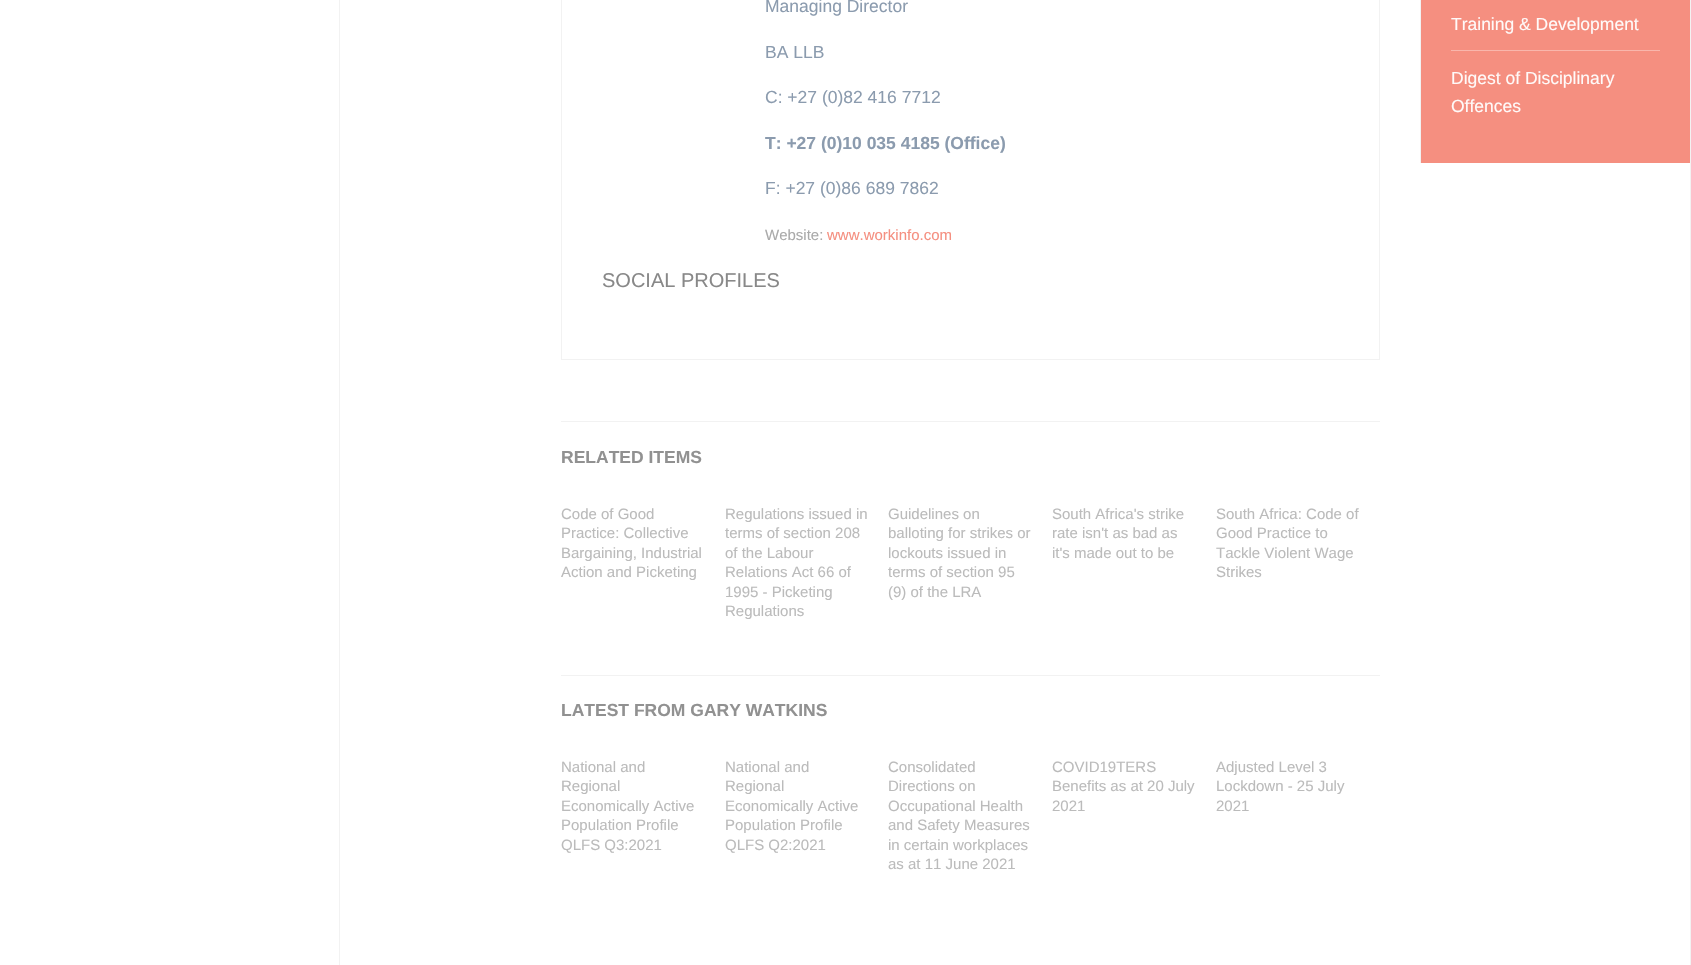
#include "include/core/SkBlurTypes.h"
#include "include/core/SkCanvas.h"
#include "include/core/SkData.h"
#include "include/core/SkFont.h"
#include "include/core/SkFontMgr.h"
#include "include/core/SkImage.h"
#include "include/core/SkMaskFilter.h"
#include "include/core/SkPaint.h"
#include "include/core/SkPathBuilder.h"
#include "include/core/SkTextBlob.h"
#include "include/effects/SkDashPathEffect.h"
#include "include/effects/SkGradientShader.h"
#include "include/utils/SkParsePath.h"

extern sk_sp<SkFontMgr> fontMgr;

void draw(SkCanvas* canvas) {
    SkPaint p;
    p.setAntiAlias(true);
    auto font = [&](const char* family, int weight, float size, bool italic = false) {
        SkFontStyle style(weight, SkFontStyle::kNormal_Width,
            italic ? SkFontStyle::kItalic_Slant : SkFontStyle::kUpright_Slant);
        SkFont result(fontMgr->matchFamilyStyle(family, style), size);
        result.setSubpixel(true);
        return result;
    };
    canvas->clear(0xFFFFFFFF);
    p.setColor(0xFFF2F2F2);
    canvas->drawRect(SkRect::MakeLTRB(1690, 0, 1691, 965), p);
    canvas->drawRect(SkRect::MakeLTRB(339, 0, 340, 965), p);
    p.setStyle(SkPaint::kStroke_Style);
    p.setStrokeWidth(1);
    canvas->drawRect(SkRect::MakeLTRB(561.5f, -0.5f, 1379.5f, 359.5f), p);
    auto font1 = font("Liberation Sans", 400, 17.5f);
    p.setStyle(SkPaint::kFill_Style);
    p.setColor(0xFF8B9BAE);
    {
        const struct { const char* s; float x, y; } items[] = {
            {"Managing Director", 765, 12},
            {"BA LLB", 765, 58},
            {"C: +27 (0)82 416 7712", 765, 103},
        };
        for (auto [s, x, y] : items) {
            canvas->drawString(s, x, y, font1, p);
        }
    }
    auto font2 = font("Liberation Sans", 700, 17.5f);
    canvas->drawString("T: +27 (0)10 035 4185 (Office)", 765, 149, font2, p);
    canvas->drawString("F: +27 (0)86 689 7862", 765, 194, font1, p);
    auto font3 = font("Liberation Sans", 400, 15);
    p.setColor(0xFFAAAAAA);
    canvas->drawString("Website:", 765, 240, font3, p);
    p.setColor(0xFFF58F80);
    canvas->drawString("www.workinfo.com", 827, 240, font3, p);
    auto font4 = font("Liberation Sans", 400, 20);
    p.setColor(0xFF888888);
    canvas->drawString("SOCIAL PROFILES", 602, 287, font4, p);
    p.setColor(0xFFF2F2F2);
    canvas->drawRect(SkRect::MakeLTRB(561, 421, 1380, 422), p);
    p.setColor(0xFF919191);
    canvas->drawString("RELATED ITEMS", 561, 463, font2, p);
    p.setColor(0xFFBBBBBB);
    {
        const struct { const char* s; float x, y; } items[] = {
            {"Code of Good", 561, 519},
            {"Practice: Collective", 561, 538},
            {"Bargaining, Industrial", 561, 558},
            {"Action and Picketing", 561, 577},
            {"Regulations issued in", 725, 519},
            {"terms of section 208", 725, 538},
            {"of the Labour", 725, 558},
            {"Relations Act 66 of", 725, 577},
            {"1995 - Picketing", 725, 597},
            {"Regulations", 725, 616},
            {"Guidelines on", 888, 519},
            {"balloting for strikes or", 888, 538},
            {"lockouts issued in", 888, 558},
            {"terms of section 95", 888, 577},
            {"(9) of the LRA", 888, 597},
            {"South Africa's strike", 1052, 519},
            {"rate isn't as bad as", 1052, 538},
            {"it's made out to be", 1052, 558},
            {"South Africa: Code of", 1216, 519},
            {"Good Practice to", 1216, 538},
            {"Tackle Violent Wage", 1216, 558},
            {"Strikes", 1216, 577},
        };
        for (auto [s, x, y] : items) {
            canvas->drawString(s, x, y, font3, p);
        }
    }
    p.setColor(0xFFF2F2F2);
    canvas->drawRect(SkRect::MakeLTRB(561, 675, 1380, 676), p);
    p.setColor(0xFF919191);
    canvas->drawString("LATEST FROM GARY WATKINS", 561, 716, font2, p);
    p.setColor(0xFFBBBBBB);
    {
        const struct { const char* s; float x, y; } items[] = {
            {"National and", 561, 772},
            {"Regional", 561, 791},
            {"Economically Active", 561, 811},
            {"Population Profile", 561, 830},
            {"QLFS Q3:2021", 561, 850},
            {"National and", 725, 772},
            {"Regional", 725, 791},
            {"Economically Active", 725, 811},
            {"Population Profile", 725, 830},
            {"QLFS Q2:2021", 725, 850},
            {"Consolidated", 888, 772},
            {"Directions on", 888, 791},
            {"Occupational Health", 888, 811},
            {"and Safety Measures", 888, 830},
            {"in certain workplaces", 888, 850},
            {"as at 11 June 2021", 888, 869},
            {"COVID19TERS", 1052, 772},
            {"Benefits as at 20 July", 1052, 791},
            {"2021", 1052, 811},
            {"Adjusted Level 3", 1216, 772},
            {"Lockdown - 25 July", 1216, 791},
            {"2021", 1216, 811},
        };
        for (auto [s, x, y] : items) {
            canvas->drawString(s, x, y, font3, p);
        }
    }
    {
        const struct { float l, t, r, b; SkColor color; } items[] = {
            {1420, 0, 1421, 163, 0xFFF2F2F2},
            {1421, 0, 1690, 163, 0xFFF58F80},
            {1451, 50, 1660, 51, 0xFFF9B6AC},
        };
        for (auto [l, t, r, b, color] : items) {
            p.setColor(color);
            canvas->drawRect(SkRect::MakeLTRB(l, t, r, b), p);
        }
    }
    p.setColor(0xFFFFFAF9);
    {
        const struct { const char* s; float x, y; } items[] = {
            {"Training & Development", 1451, 30},
            {"Digest of Disciplinary", 1451, 84},
            {"Offences", 1451, 112},
        };
        for (auto [s, x, y] : items) {
            canvas->drawString(s, x, y, font1, p);
        }
    }
}
